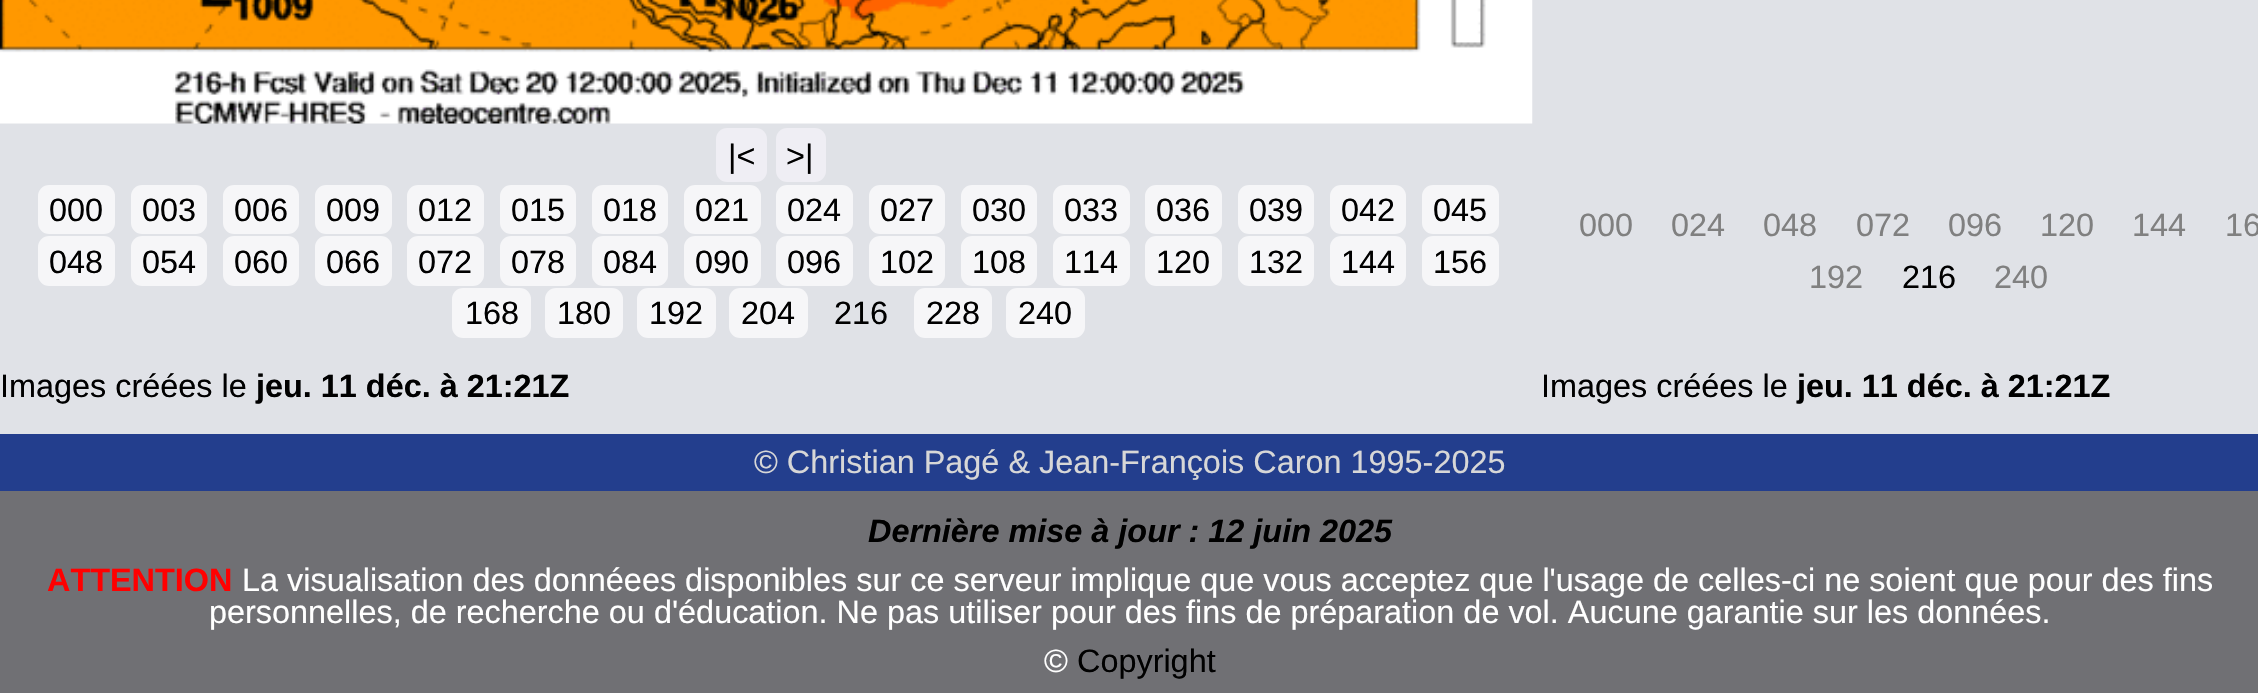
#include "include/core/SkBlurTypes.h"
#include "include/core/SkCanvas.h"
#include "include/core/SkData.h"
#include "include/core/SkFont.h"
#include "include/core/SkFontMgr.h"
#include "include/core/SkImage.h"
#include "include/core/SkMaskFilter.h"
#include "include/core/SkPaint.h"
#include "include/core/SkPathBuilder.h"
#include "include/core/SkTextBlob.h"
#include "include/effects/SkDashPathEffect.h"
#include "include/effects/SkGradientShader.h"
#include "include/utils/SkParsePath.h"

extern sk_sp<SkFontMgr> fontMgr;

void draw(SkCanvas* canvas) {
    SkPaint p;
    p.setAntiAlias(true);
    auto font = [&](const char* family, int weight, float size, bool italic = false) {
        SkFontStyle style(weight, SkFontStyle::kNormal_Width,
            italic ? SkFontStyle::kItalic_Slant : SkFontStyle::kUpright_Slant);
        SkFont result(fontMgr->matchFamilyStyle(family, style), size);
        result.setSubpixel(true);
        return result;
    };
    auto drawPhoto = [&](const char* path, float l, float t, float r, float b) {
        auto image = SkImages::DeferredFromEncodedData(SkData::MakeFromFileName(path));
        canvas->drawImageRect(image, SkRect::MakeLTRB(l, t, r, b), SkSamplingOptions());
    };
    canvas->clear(0xFFE0E2E7);
    drawPhoto("media/1.png", 0, 0, 1533, 124);
    p.setColor(0xFFEFEEF4);
    canvas->drawRoundRect(SkRect::MakeLTRB(716, 128, 767, 182), 11, 11, p);
    auto font1 = font("Liberation Sans", 400, 32.4f);
    p.setColor(0xFF000000);
    canvas->drawString("|<", 728, 167, font1, p);
    p.setColor(0xFFEFEEF4);
    canvas->drawRoundRect(SkRect::MakeLTRB(776, 128, 826, 182), 11, 11, p);
    p.setColor(0xFF000000);
    canvas->drawString(">|", 786, 167, font1, p);
    p.setColor(0xFFF6F6F8);
    canvas->drawRoundRect(SkRect::MakeLTRB(38, 185, 115, 234), 11, 11, p);
    p.setColor(0xFF000000);
    canvas->drawString("000", 49, 221, font1, p);
    p.setColor(0xFFF6F6F8);
    canvas->drawRoundRect(SkRect::MakeLTRB(131, 185, 207, 234), 11, 11, p);
    p.setColor(0xFF000000);
    canvas->drawString("003", 142, 221, font1, p);
    p.setColor(0xFFF6F6F8);
    canvas->drawRoundRect(SkRect::MakeLTRB(223, 185, 299, 234), 11, 11, p);
    p.setColor(0xFF000000);
    canvas->drawString("006", 234, 221, font1, p);
    p.setColor(0xFFF6F6F8);
    canvas->drawRoundRect(SkRect::MakeLTRB(315, 185, 392, 234), 11, 11, p);
    p.setColor(0xFF000000);
    canvas->drawString("009", 326, 221, font1, p);
    p.setColor(0xFFF6F6F8);
    canvas->drawRoundRect(SkRect::MakeLTRB(407, 185, 484, 234), 11, 11, p);
    p.setColor(0xFF000000);
    canvas->drawString("012", 418, 221, font1, p);
    p.setColor(0xFFF6F6F8);
    canvas->drawRoundRect(SkRect::MakeLTRB(500, 185, 576, 234), 11, 11, p);
    p.setColor(0xFF000000);
    canvas->drawString("015", 511, 221, font1, p);
    p.setColor(0xFFF6F6F8);
    canvas->drawRoundRect(SkRect::MakeLTRB(592, 185, 668, 234), 11, 11, p);
    p.setColor(0xFF000000);
    canvas->drawString("018", 603, 221, font1, p);
    p.setColor(0xFFF6F6F8);
    canvas->drawRoundRect(SkRect::MakeLTRB(684, 185, 761, 234), 11, 11, p);
    p.setColor(0xFF000000);
    canvas->drawString("021", 695, 221, font1, p);
    p.setColor(0xFFF6F6F8);
    canvas->drawRoundRect(SkRect::MakeLTRB(776, 185, 853, 234), 11, 11, p);
    p.setColor(0xFF000000);
    canvas->drawString("024", 787, 221, font1, p);
    p.setColor(0xFFF6F6F8);
    canvas->drawRoundRect(SkRect::MakeLTRB(869, 185, 945, 234), 11, 11, p);
    p.setColor(0xFF000000);
    canvas->drawString("027", 880, 221, font1, p);
    p.setColor(0xFFF6F6F8);
    canvas->drawRoundRect(SkRect::MakeLTRB(961, 185, 1037, 234), 11, 11, p);
    p.setColor(0xFF000000);
    canvas->drawString("030", 972, 221, font1, p);
    p.setColor(0xFFF6F6F8);
    canvas->drawRoundRect(SkRect::MakeLTRB(1053, 185, 1130, 234), 11, 11, p);
    p.setColor(0xFF000000);
    canvas->drawString("033", 1064, 221, font1, p);
    p.setColor(0xFFF6F6F8);
    canvas->drawRoundRect(SkRect::MakeLTRB(1145, 185, 1222, 234), 11, 11, p);
    p.setColor(0xFF000000);
    canvas->drawString("036", 1156, 221, font1, p);
    p.setColor(0xFFF6F6F8);
    canvas->drawRoundRect(SkRect::MakeLTRB(1238, 185, 1314, 234), 11, 11, p);
    p.setColor(0xFF000000);
    canvas->drawString("039", 1249, 221, font1, p);
    p.setColor(0xFFF6F6F8);
    canvas->drawRoundRect(SkRect::MakeLTRB(1330, 185, 1406, 234), 11, 11, p);
    p.setColor(0xFF000000);
    canvas->drawString("042", 1341, 221, font1, p);
    p.setColor(0xFFF6F6F8);
    canvas->drawRoundRect(SkRect::MakeLTRB(1422, 185, 1499, 234), 11, 11, p);
    p.setColor(0xFF000000);
    canvas->drawString("045", 1433, 221, font1, p);
    p.setColor(0xFFF6F6F8);
    canvas->drawRoundRect(SkRect::MakeLTRB(38, 236, 115, 286), 11, 11, p);
    p.setColor(0xFF000000);
    canvas->drawString("048", 49, 273, font1, p);
    p.setColor(0xFFF6F6F8);
    canvas->drawRoundRect(SkRect::MakeLTRB(131, 236, 207, 286), 11, 11, p);
    p.setColor(0xFF000000);
    canvas->drawString("054", 142, 273, font1, p);
    p.setColor(0xFFF6F6F8);
    canvas->drawRoundRect(SkRect::MakeLTRB(223, 236, 299, 286), 11, 11, p);
    p.setColor(0xFF000000);
    canvas->drawString("060", 234, 273, font1, p);
    p.setColor(0xFFF6F6F8);
    canvas->drawRoundRect(SkRect::MakeLTRB(315, 236, 392, 286), 11, 11, p);
    p.setColor(0xFF000000);
    canvas->drawString("066", 326, 273, font1, p);
    p.setColor(0xFFF6F6F8);
    canvas->drawRoundRect(SkRect::MakeLTRB(407, 236, 484, 286), 11, 11, p);
    p.setColor(0xFF000000);
    canvas->drawString("072", 418, 273, font1, p);
    p.setColor(0xFFF6F6F8);
    canvas->drawRoundRect(SkRect::MakeLTRB(500, 236, 576, 286), 11, 11, p);
    p.setColor(0xFF000000);
    canvas->drawString("078", 511, 273, font1, p);
    p.setColor(0xFFF6F6F8);
    canvas->drawRoundRect(SkRect::MakeLTRB(592, 236, 668, 286), 11, 11, p);
    p.setColor(0xFF000000);
    canvas->drawString("084", 603, 273, font1, p);
    p.setColor(0xFFF6F6F8);
    canvas->drawRoundRect(SkRect::MakeLTRB(684, 236, 761, 286), 11, 11, p);
    p.setColor(0xFF000000);
    canvas->drawString("090", 695, 273, font1, p);
    p.setColor(0xFFF6F6F8);
    canvas->drawRoundRect(SkRect::MakeLTRB(776, 236, 853, 286), 11, 11, p);
    p.setColor(0xFF000000);
    canvas->drawString("096", 787, 273, font1, p);
    p.setColor(0xFFF6F6F8);
    canvas->drawRoundRect(SkRect::MakeLTRB(869, 236, 945, 286), 11, 11, p);
    p.setColor(0xFF000000);
    canvas->drawString("102", 880, 273, font1, p);
    p.setColor(0xFFF6F6F8);
    canvas->drawRoundRect(SkRect::MakeLTRB(961, 236, 1037, 286), 11, 11, p);
    p.setColor(0xFF000000);
    canvas->drawString("108", 972, 273, font1, p);
    p.setColor(0xFFF6F6F8);
    canvas->drawRoundRect(SkRect::MakeLTRB(1053, 236, 1130, 286), 11, 11, p);
    p.setColor(0xFF000000);
    canvas->drawString("114", 1064, 273, font1, p);
    p.setColor(0xFFF6F6F8);
    canvas->drawRoundRect(SkRect::MakeLTRB(1145, 236, 1222, 286), 11, 11, p);
    p.setColor(0xFF000000);
    canvas->drawString("120", 1156, 273, font1, p);
    p.setColor(0xFFF6F6F8);
    canvas->drawRoundRect(SkRect::MakeLTRB(1238, 236, 1314, 286), 11, 11, p);
    p.setColor(0xFF000000);
    canvas->drawString("132", 1249, 273, font1, p);
    p.setColor(0xFFF6F6F8);
    canvas->drawRoundRect(SkRect::MakeLTRB(1330, 236, 1406, 286), 11, 11, p);
    p.setColor(0xFF000000);
    canvas->drawString("144", 1341, 273, font1, p);
    p.setColor(0xFFF6F6F8);
    canvas->drawRoundRect(SkRect::MakeLTRB(1422, 236, 1499, 286), 11, 11, p);
    p.setColor(0xFF000000);
    canvas->drawString("156", 1433, 273, font1, p);
    p.setColor(0xFFF6F6F8);
    canvas->drawRoundRect(SkRect::MakeLTRB(452, 288, 531, 338), 11, 11, p);
    p.setColor(0xFF000000);
    canvas->drawString("168", 465, 324, font1, p);
    p.setColor(0xFFF6F6F8);
    canvas->drawRoundRect(SkRect::MakeLTRB(545, 288, 623, 338), 11, 11, p);
    p.setColor(0xFF000000);
    canvas->drawString("180", 557, 324, font1, p);
    p.setColor(0xFFF6F6F8);
    canvas->drawRoundRect(SkRect::MakeLTRB(637, 288, 716, 338), 11, 11, p);
    p.setColor(0xFF000000);
    canvas->drawString("192", 649, 324, font1, p);
    p.setColor(0xFFF6F6F8);
    canvas->drawRoundRect(SkRect::MakeLTRB(729, 288, 808, 338), 11, 11, p);
    p.setColor(0xFF000000);
    canvas->drawString("204", 741, 324, font1, p);
    canvas->drawString("216", 834, 324, font1, p);
    p.setColor(0xFFF6F6F8);
    canvas->drawRoundRect(SkRect::MakeLTRB(914, 288, 992, 338), 11, 11, p);
    p.setColor(0xFF000000);
    canvas->drawString("228", 926, 324, font1, p);
    p.setColor(0xFFF6F6F8);
    canvas->drawRoundRect(SkRect::MakeLTRB(1006, 288, 1085, 338), 11, 11, p);
    p.setColor(0xFF000000);
    canvas->drawString("240", 1018, 324, font1, p);
    p.setColor(0xFF808080);
    {
        const struct { const char* s; float x, y; } items[] = {
            {"000", 1579, 236},
            {"024", 1671, 236},
            {"048", 1763, 236},
            {"072", 1856, 236},
            {"096", 1948, 236},
            {"120", 2040, 236},
            {"144", 2132, 236},
            {"16", 2225, 236},
            {"192", 1809, 288},
        };
        for (auto [s, x, y] : items) {
            canvas->drawString(s, x, y, font1, p);
        }
    }
    p.setColor(0xFF000000);
    canvas->drawString("216", 1902, 288, font1, p);
    p.setColor(0xFF808080);
    canvas->drawString("240", 1994, 288, font1, p);
    p.setColor(0xFF000000);
    canvas->drawString("Images créées le", 0, 397, font1, p);
    auto font2 = font("Liberation Sans", 700, 32.4f);
    canvas->drawString("jeu. 11 déc. à 21:21Z", 256, 397, font2, p);
    canvas->drawString("Images créées le", 1541, 397, font1, p);
    canvas->drawString("jeu. 11 déc. à 21:21Z", 1797, 397, font2, p);
    p.setColor(0xFF233E8D);
    canvas->drawRect(SkRect::MakeLTRB(0, 434, 2258, 491), p);
    p.setColor(0xFFD7D7D7);
    canvas->drawString("© Christian Pagé & Jean-François Caron 1995-2025", 754, 473, font1, p);
    p.setColor(0xFF707074);
    canvas->drawRect(SkRect::MakeLTRB(0, 491, 2258, 693), p);
    auto font3 = font("Liberation Sans", 700, 32.4f, true);
    p.setColor(0xFF000000);
    canvas->drawString("Dernière mise à jour : 12 juin 2025", 868, 542, font3, p);
    p.setColor(0xFFFF0000);
    canvas->drawString("ATTENTION", 47, 591, font2, p);
    p.setColor(0xFFFFFFFF);
    {
        const struct { const char* s; float x, y; } items[] = {
            {"La visualisation des donnéees disponibles sur ce serveur implique que vous acceptez que l'usage de celles-ci ne soient que pour des fins", 242, 591},
            {"personnelles, de recherche ou d'éducation. Ne pas utiliser pour des fins de préparation de vol. Aucune garantie sur les données.", 209, 623},
            {"©", 1044, 672},
        };
        for (auto [s, x, y] : items) {
            canvas->drawString(s, x, y, font1, p);
        }
    }
    p.setColor(0xFF000000);
    canvas->drawString("Copyright", 1077, 672, font1, p);
}
